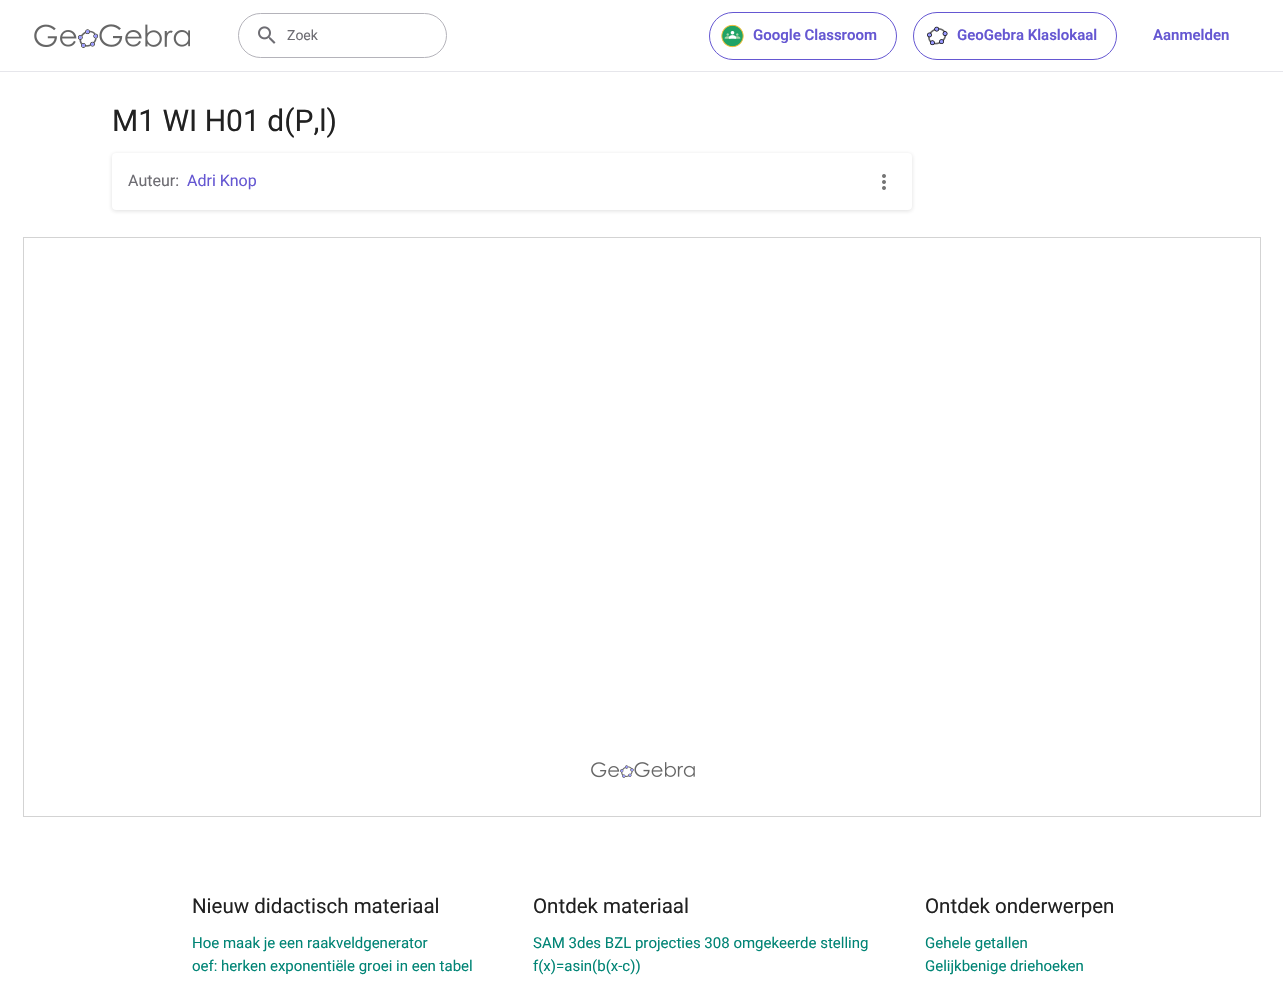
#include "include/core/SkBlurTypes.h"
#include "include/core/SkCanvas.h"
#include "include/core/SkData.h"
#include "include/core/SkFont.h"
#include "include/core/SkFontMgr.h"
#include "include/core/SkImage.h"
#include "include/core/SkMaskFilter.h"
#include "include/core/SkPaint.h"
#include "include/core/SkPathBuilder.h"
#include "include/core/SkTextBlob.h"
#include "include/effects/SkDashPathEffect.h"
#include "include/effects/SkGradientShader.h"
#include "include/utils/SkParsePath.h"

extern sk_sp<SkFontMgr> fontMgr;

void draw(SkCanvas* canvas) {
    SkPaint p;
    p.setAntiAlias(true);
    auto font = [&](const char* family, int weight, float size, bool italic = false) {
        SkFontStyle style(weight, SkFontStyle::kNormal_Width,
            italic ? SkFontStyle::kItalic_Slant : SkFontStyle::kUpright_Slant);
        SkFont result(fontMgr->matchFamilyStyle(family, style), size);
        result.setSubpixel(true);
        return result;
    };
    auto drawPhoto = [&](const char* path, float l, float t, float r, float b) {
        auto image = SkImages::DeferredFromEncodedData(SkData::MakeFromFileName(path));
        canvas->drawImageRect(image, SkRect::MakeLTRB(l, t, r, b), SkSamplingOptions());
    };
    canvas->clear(0xFFFFFFFF);
    p.setColor(0xFFE6E6EB);
    canvas->drawRect(SkRect::MakeLTRB(0, 71, 1283, 72), p);
    drawPhoto("media/1.png", 34, 24, 190, 48);
    p.setStyle(SkPaint::kStroke_Style);
    p.setStrokeWidth(1);
    p.setColor(0xFFB4B3BA);
    canvas->drawRoundRect(SkRect::MakeLTRB(238.5f, 13.5f, 446.5f, 57.5f), 22, 22, p);
    drawPhoto("media/2.png", 258, 26, 276, 44);
    auto font1 = font("Roboto", 400, 14);
    p.setStyle(SkPaint::kFill_Style);
    p.setColor(0xFF6E6D73);
    canvas->drawString("Zoek", 287, 40, font1, p);
    p.setStyle(SkPaint::kStroke_Style);
    p.setColor(0xFF6557D2);
    canvas->drawRoundRect(SkRect::MakeLTRB(709.5f, 12.5f, 896.5f, 59.5f), 23.5f, 23.5f, p);
    drawPhoto("media/3.png", 721, 24, 744, 48);
    auto font2 = font("Roboto", 600, 15);
    p.setStyle(SkPaint::kFill_Style);
    canvas->drawString("Google Classroom", 753, 40, font2, p);
    p.setStyle(SkPaint::kStroke_Style);
    canvas->drawRoundRect(SkRect::MakeLTRB(913.5f, 12.5f, 1116.5f, 59.5f), 23.5f, 23.5f, p);
    drawPhoto("media/4.png", 927, 26, 948, 46);
    p.setStyle(SkPaint::kFill_Style);
    canvas->drawString("GeoGebra Klaslokaal", 957, 40, font2, p);
    canvas->drawString("Aanmelden", 1153, 40, font2, p);
    auto font3 = font("Roboto", 400, 30);
    p.setColor(0xFF212121);
    canvas->drawString("M1 WI H01 d(P,l)", 112, 131, font3, p);
    p.setColor(0x241C1C1F);
    p.setMaskFilter(SkMaskFilter::MakeBlur(kNormal_SkBlurStyle, 2));
    canvas->drawRoundRect(SkRect::MakeLTRB(112, 154, 912, 211), 4, 4, p);
    p.setMaskFilter(nullptr);
    p.setColor(0xFFFFFFFF);
    canvas->drawRoundRect(SkRect::MakeLTRB(112, 153, 912, 210), 4, 4, p);
    auto font4 = font("Roboto", 400, 16);
    p.setColor(0xFF6E6D73);
    canvas->drawString("Auteur:", 128, 186, font4, p);
    p.setColor(0xFF6557D2);
    canvas->drawString("Adri Knop", 187, 186, font4, p);
    drawPhoto("media/5.png", 882, 174, 886, 190);
    drawPhoto("media/6.png", 591, 762, 695, 778);
    p.setStyle(SkPaint::kStroke_Style);
    p.setColor(0xFFD3D3D3);
    canvas->drawRect(SkRect::MakeLTRB(23.5f, 237.5f, 1260.5f, 816.5f), p);
    auto font5 = font("Roboto", 400, 20.5f);
    p.setStyle(SkPaint::kFill_Style);
    p.setColor(0xFF212121);
    canvas->drawString("Nieuw didactisch materiaal", 192, 913, font5, p);
    auto font6 = font("Roboto", 400, 15);
    p.setColor(0xFF008475);
    canvas->drawString("Hoe maak je een raakveldgenerator", 192, 948, font6, p);
    canvas->drawString("oef: herken exponentiële groei in een tabel", 192, 971, font6, p);
    p.setColor(0xFF212121);
    canvas->drawString("Ontdek materiaal", 533, 913, font5, p);
    p.setColor(0xFF008475);
    canvas->drawString("SAM 3des BZL projecties 308 omgekeerde stelling", 533, 948, font6, p);
    canvas->drawString("f(x)=asin(b(x-c))", 533, 971, font6, p);
    p.setColor(0xFF212121);
    canvas->drawString("Ontdek onderwerpen", 925, 913, font5, p);
    p.setColor(0xFF008475);
    canvas->drawString("Gehele getallen", 925, 948, font6, p);
    canvas->drawString("Gelijkbenige driehoeken", 925, 971, font6, p);
}
